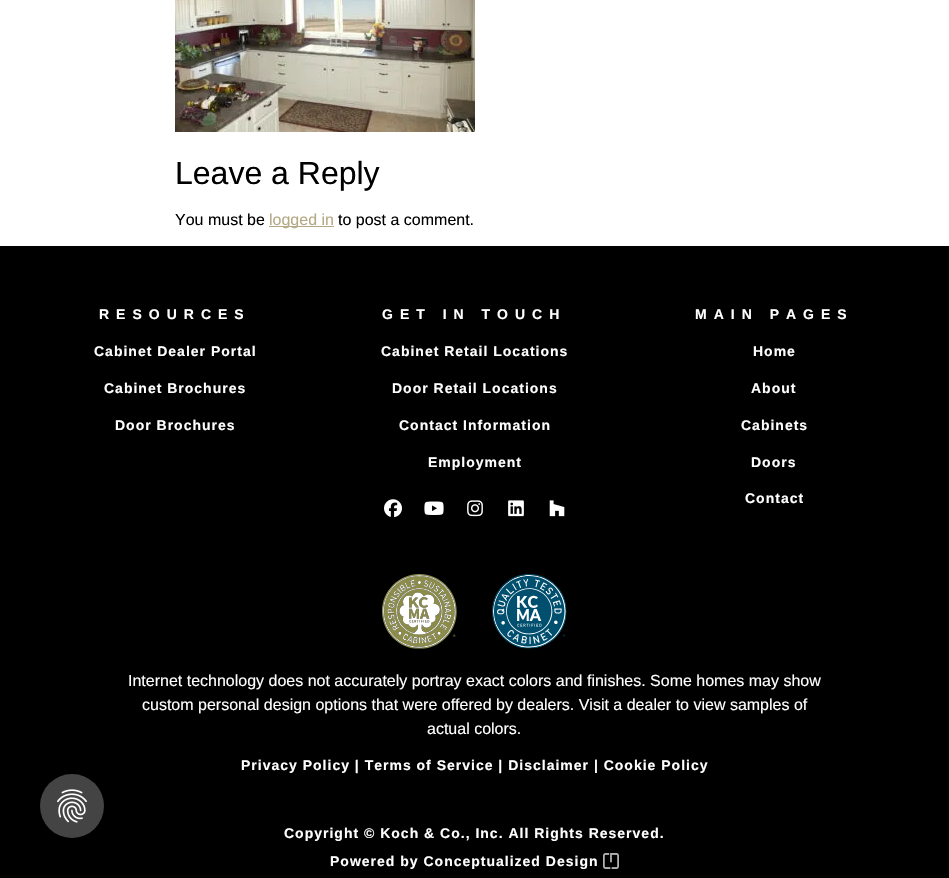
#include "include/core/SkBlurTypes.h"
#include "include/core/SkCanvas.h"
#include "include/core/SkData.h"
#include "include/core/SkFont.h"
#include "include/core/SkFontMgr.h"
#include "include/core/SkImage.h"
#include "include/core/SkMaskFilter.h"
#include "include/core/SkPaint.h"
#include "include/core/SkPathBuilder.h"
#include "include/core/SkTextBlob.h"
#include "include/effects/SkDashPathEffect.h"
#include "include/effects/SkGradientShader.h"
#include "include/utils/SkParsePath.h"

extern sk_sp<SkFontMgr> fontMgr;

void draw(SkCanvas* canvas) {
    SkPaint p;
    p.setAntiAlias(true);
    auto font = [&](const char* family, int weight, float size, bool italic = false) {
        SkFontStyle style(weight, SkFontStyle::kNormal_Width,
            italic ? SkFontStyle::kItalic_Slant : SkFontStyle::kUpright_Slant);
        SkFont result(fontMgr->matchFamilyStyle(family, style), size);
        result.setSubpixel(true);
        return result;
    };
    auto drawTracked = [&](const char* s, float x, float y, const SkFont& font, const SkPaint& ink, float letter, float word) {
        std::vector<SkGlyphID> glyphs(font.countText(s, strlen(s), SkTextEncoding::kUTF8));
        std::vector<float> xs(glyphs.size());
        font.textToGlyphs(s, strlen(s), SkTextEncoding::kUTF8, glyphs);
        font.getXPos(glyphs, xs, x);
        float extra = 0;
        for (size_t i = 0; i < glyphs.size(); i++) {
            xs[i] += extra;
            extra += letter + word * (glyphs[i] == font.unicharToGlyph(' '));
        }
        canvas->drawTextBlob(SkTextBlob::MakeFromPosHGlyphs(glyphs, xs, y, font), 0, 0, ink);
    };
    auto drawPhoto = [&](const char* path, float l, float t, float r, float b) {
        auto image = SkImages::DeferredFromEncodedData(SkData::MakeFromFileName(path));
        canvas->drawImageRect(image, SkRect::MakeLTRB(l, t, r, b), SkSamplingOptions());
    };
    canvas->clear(0xFFFFFFFF);
    drawPhoto("media/1.png", 175, 0, 475, 132);
    auto font1 = font("Liberation Sans", 400, 32);
    p.setColor(0xFF000000);
    canvas->drawString("Leave a Reply", 175, 184, font1, p);
    auto font2 = font("Liberation Sans", 400, 16);
    canvas->drawString("You must be", 175, 225, font2, p);
    p.setColor(0xFFB4A984);
    canvas->drawRect(SkRect::MakeLTRB(269, 226, 334, 227), p);
    canvas->drawString("logged in", 269, 225, font2, p);
    p.setColor(0xFF000000);
    canvas->drawString("to post a comment.", 338, 225, font2, p);
    canvas->drawRect(SkRect::MakeLTRB(0, 246, 949, 878), p);
    p.setColor(0xFF444444);
    canvas->drawCircle(72, 806, 32, p);
    drawPhoto("media/2.png", 57, 789, 87, 823);
    auto font3 = font("Liberation Sans", 700, 14);
    p.setColor(0xFFFFFFFF);
    drawTracked("RESOURCES", 99, 319, font3, p, 7, 0);
    {
        const struct { const char* s; float x, y; } items[] = {
            {"Cabinet Dealer Portal", 94, 356},
            {"Cabinet Brochures", 104, 393},
            {"Door Brochures", 115, 430},
        };
        for (auto [s, x, y] : items) {
            drawTracked(s, x, y, font3, p, 1, 0);
        }
    }
    drawTracked("GET IN TOUCH", 382, 319, font3, p, 7, 0);
    {
        const struct { const char* s; float x, y; } items[] = {
            {"Cabinet Retail Locations", 381, 356},
            {"Door Retail Locations", 392, 393},
            {"Contact Information", 399, 430},
            {"Employment", 428, 467},
        };
        for (auto [s, x, y] : items) {
            drawTracked(s, x, y, font3, p, 1, 0);
        }
    }
    drawPhoto("media/3.png", 384, 499, 402, 518);
    drawPhoto("media/4.png", 424, 501, 444, 515);
    drawPhoto("media/5.png", 467, 500, 483, 517);
    drawPhoto("media/6.png", 508, 500, 524, 517);
    drawPhoto("media/7.png", 549, 500, 565, 517);
    drawTracked("MAIN PAGES", 695, 319, font3, p, 7, 0);
    {
        const struct { const char* s; float x, y; } items[] = {
            {"Home", 753, 356},
            {"About", 751, 393},
            {"Cabinets", 741, 430},
            {"Doors", 751, 467},
            {"Contact", 745, 503},
        };
        for (auto [s, x, y] : items) {
            drawTracked(s, x, y, font3, p, 1, 0);
        }
    }
    drawPhoto("media/8.png", 382, 574, 457, 649);
    drawPhoto("media/9.png", 492, 574, 567, 649);
    {
        const struct { const char* s; float x, y; } items[] = {
            {"Internet technology does not accurately portray exact colors and finishes. Some homes may show", 128, 686},
            {"custom personal design options that were offered by dealers. Visit a dealer to view samples of", 142, 710},
            {"actual colors.", 427, 734},
        };
        for (auto [s, x, y] : items) {
            canvas->drawString(s, x, y, font2, p);
        }
    }
    {
        const struct { const char* s; float x, y; } items[] = {
            {"Privacy Policy | Terms of Service | Disclaimer | Cookie Policy", 241, 770},
            {"Copyright © Koch & Co., Inc. All Rights Reserved.", 284, 838},
            {"Powered by Conceptualized Design", 330, 866},
        };
        for (auto [s, x, y] : items) {
            drawTracked(s, x, y, font3, p, 1, 0);
        }
    }
    drawPhoto("media/10.png", 603, 853, 619, 869);
}
